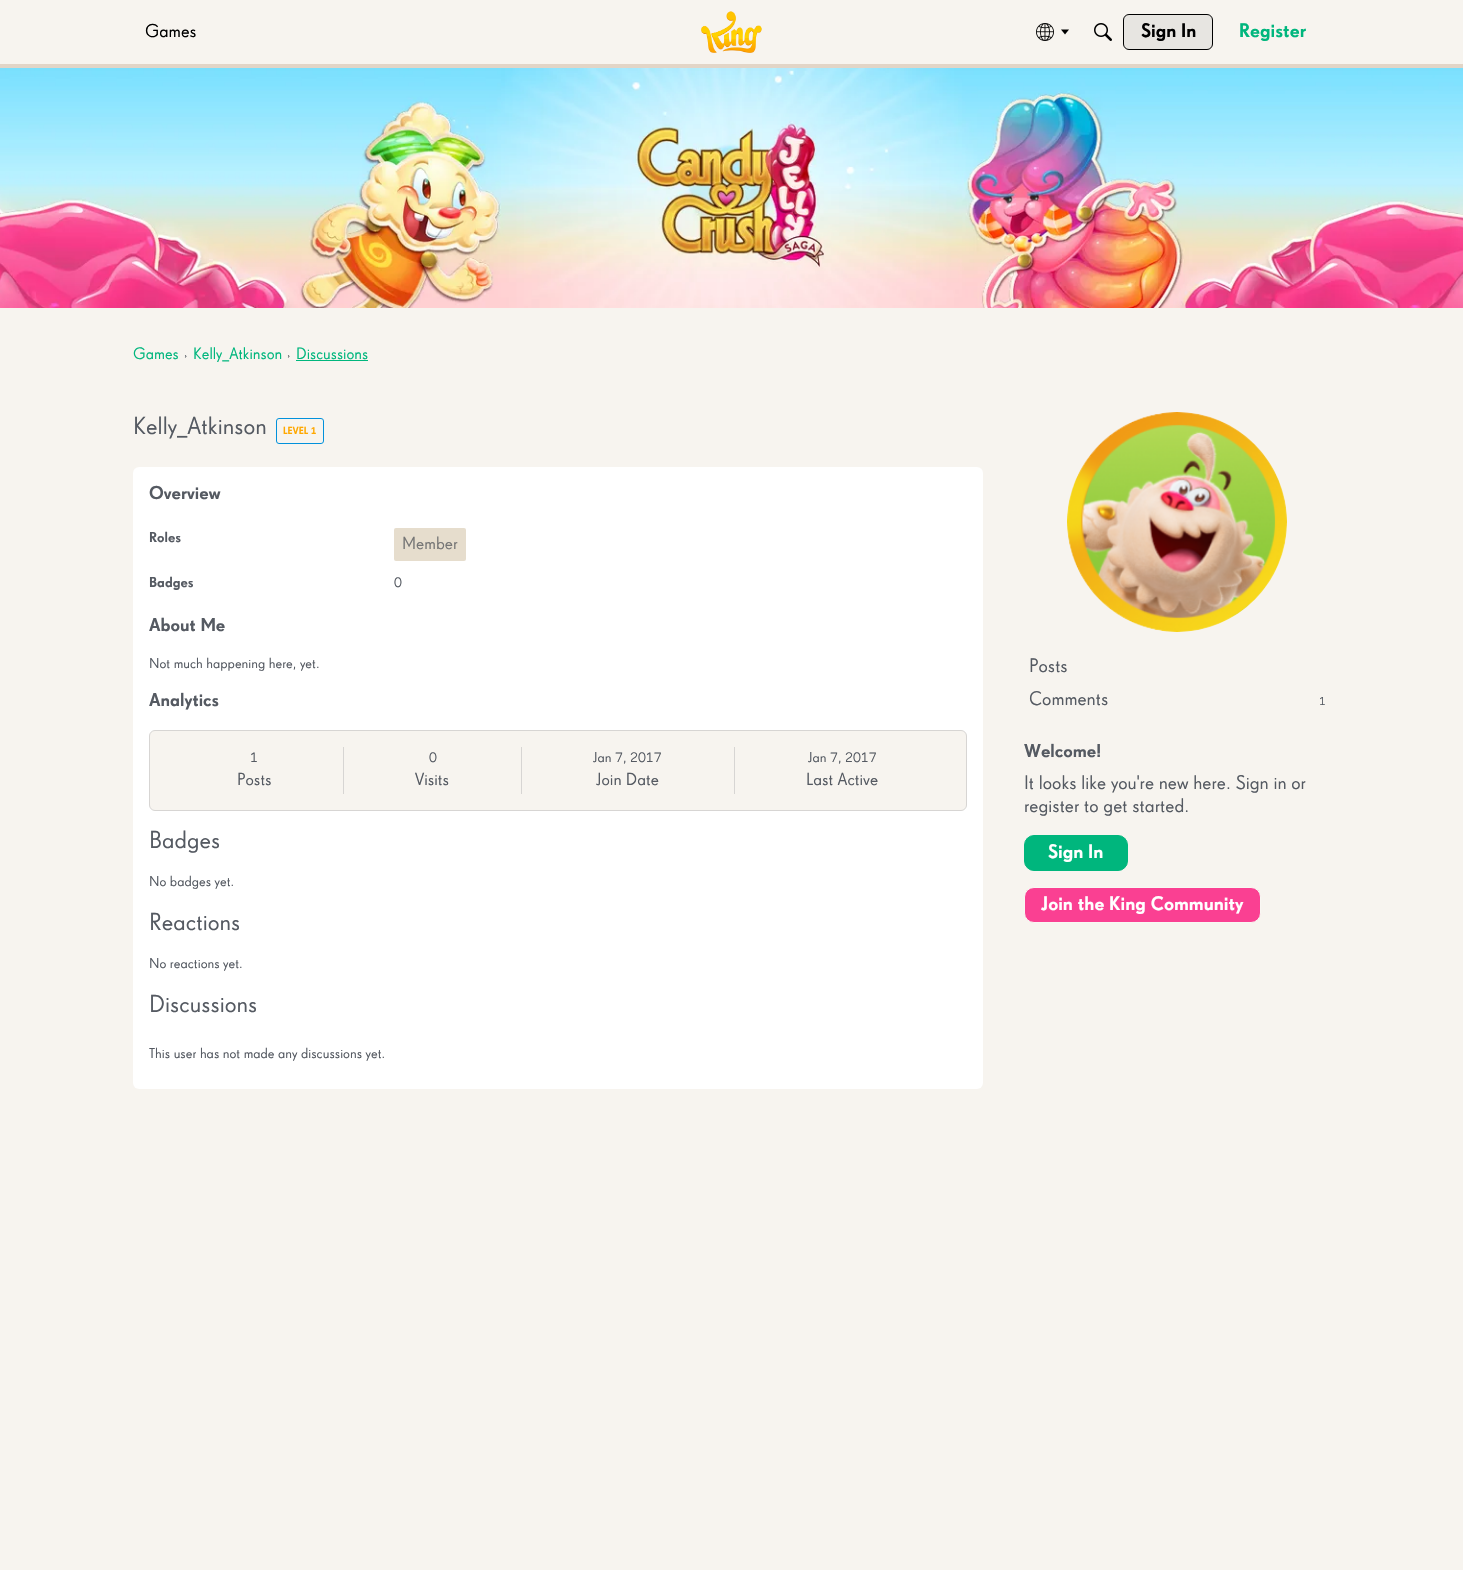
#include "include/core/SkBlurTypes.h"
#include "include/core/SkCanvas.h"
#include "include/core/SkData.h"
#include "include/core/SkFont.h"
#include "include/core/SkFontMgr.h"
#include "include/core/SkImage.h"
#include "include/core/SkMaskFilter.h"
#include "include/core/SkPaint.h"
#include "include/core/SkPathBuilder.h"
#include "include/core/SkTextBlob.h"
#include "include/effects/SkDashPathEffect.h"
#include "include/effects/SkGradientShader.h"
#include "include/utils/SkParsePath.h"

extern sk_sp<SkFontMgr> fontMgr;

void draw(SkCanvas* canvas) {
    SkPaint p;
    p.setAntiAlias(true);
    auto font = [&](const char* family, int weight, float size, bool italic = false) {
        SkFontStyle style(weight, SkFontStyle::kNormal_Width,
            italic ? SkFontStyle::kItalic_Slant : SkFontStyle::kUpright_Slant);
        SkFont result(fontMgr->matchFamilyStyle(family, style), size);
        result.setSubpixel(true);
        return result;
    };
    auto drawPhoto = [&](const char* path, float l, float t, float r, float b) {
        auto image = SkImages::DeferredFromEncodedData(SkData::MakeFromFileName(path));
        canvas->drawImageRect(image, SkRect::MakeLTRB(l, t, r, b), SkSamplingOptions());
    };
    canvas->clear(0xFFF7F4EF);
    p.setColor(0xFFE2D5C7);
    canvas->drawRect(SkRect::MakeLTRB(0, 64, 1463, 68), p);
    auto font1 = font("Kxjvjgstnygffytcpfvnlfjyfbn", 400, 18);
    p.setColor(0xFF000000);
    canvas->drawString("Games", 145, 37, font1, p);
    drawPhoto("media/1.png", 701, 11, 762, 53);
    drawPhoto("media/2.png", 1036, 23, 1054, 41);
    canvas->drawPath(SkPathBuilder().moveTo(1061, 29.5f).lineTo(1069, 29.5f).lineTo(1065, 34.5f).close().detach(), p);
    drawPhoto("media/3.png", 1094, 23, 1112, 41);
    p.setColor(0xFFE7E5E1);
    canvas->drawRoundRect(SkRect::MakeLTRB(1123.5f, 14.5f, 1212.5f, 49.5f), 5.5f, 5.5f, p);
    p.setStyle(SkPaint::kStroke_Style);
    p.setStrokeWidth(1);
    p.setColor(0xFF000000);
    canvas->drawRoundRect(SkRect::MakeLTRB(1123.5f, 14.5f, 1212.5f, 49.5f), 5.5f, 5.5f, p);
    auto font2 = font("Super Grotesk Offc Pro", 500, 19);
    p.setStyle(SkPaint::kFill_Style);
    canvas->drawString("Sign In", 1141, 37, font2, p);
    p.setColor(0xFF00B67D);
    canvas->drawString("Register", 1239, 37, font2, p);
    drawPhoto("media/4.png", 0, 68, 1463, 308);
    auto font3 = font("Kxjvjgstnygffytcpfvnlfjyfbn", 400, 16);
    canvas->drawString("Games", 133, 359, font3, p);
    auto font4 = font("Kxjvjgstnygffytcpfvnlfjyfbn", 400, 12);
    p.setColor(0xFF555A62);
    canvas->drawString("›", 184, 359, font4, p);
    p.setColor(0xFF00B67D);
    canvas->drawString("Kelly_Atkinson", 193, 359, font3, p);
    p.setColor(0xFF555A62);
    canvas->drawString("›", 287, 359, font4, p);
    p.setColor(0xFF00B67D);
    canvas->drawRect(SkRect::MakeLTRB(296, 360, 368, 361), p);
    canvas->drawString("Discussions", 296, 359, font3, p);
    auto font5 = font("Kxjvjgstnygffytcpfvnlfjyfbn", 400, 24);
    p.setColor(0xFF555A62);
    canvas->drawString("Kelly_Atkinson", 133, 434, font5, p);
    p.setStyle(SkPaint::kStroke_Style);
    p.setColor(0xFF0291DB);
    canvas->drawRoundRect(SkRect::MakeLTRB(276.5f, 418.5f, 323.5f, 443.5f), 2.5f, 2.5f, p);
    auto font6 = font("Super Grotesk Offc Pro", 500, 10);
    p.setStyle(SkPaint::kFill_Style);
    p.setColor(0xFFFFA800);
    canvas->drawString("LEVEL 1", 283, 434, font6, p);
    p.setColor(0xFFFFFFFF);
    canvas->drawRoundRect(SkRect::MakeLTRB(133, 467, 983, 1089), 6, 6, p);
    auto font7 = font("Super Grotesk Offc Pro", 500, 18);
    p.setColor(0xFF555A62);
    canvas->drawString("Overview", 149, 499, font7, p);
    auto font8 = font("Super Grotesk Offc Pro", 500, 14);
    canvas->drawString("Roles", 149, 542, font8, p);
    p.setColor(0xFFE6DDCD);
    canvas->drawRoundRect(SkRect::MakeLTRB(394, 528, 466, 561), 2, 2, p);
    auto font9 = font("Kxjvjgstnygffytcpfvnlfjyfbn", 400, 17);
    p.setColor(0xFF767676);
    canvas->drawString("Member", 402, 549, font9, p);
    p.setColor(0xFF555A62);
    canvas->drawString("Badges", 149, 587, font8, p);
    auto font10 = font("Kxjvjgstnygffytcpfvnlfjyfbn", 400, 14);
    canvas->drawString("0", 394, 587, font10, p);
    canvas->drawString("About Me", 149, 631, font7, p);
    canvas->drawString("Not much happening here, yet.", 149, 668, font10, p);
    canvas->drawString("Analytics", 149, 706, font7, p);
    p.setColor(0xFFF7F4EF);
    canvas->drawRoundRect(SkRect::MakeLTRB(149.5f, 730.5f, 966.5f, 810.5f), 5.5f, 5.5f, p);
    p.setStyle(SkPaint::kStroke_Style);
    p.setColor(0xFFD7D5D3);
    canvas->drawRoundRect(SkRect::MakeLTRB(149.5f, 730.5f, 966.5f, 810.5f), 5.5f, 5.5f, p);
    p.setStyle(SkPaint::kFill_Style);
    canvas->drawRect(SkRect::MakeLTRB(343, 747, 344, 794), p);
    p.setColor(0xFF555A62);
    canvas->drawString("1", 250, 762, font10, p);
    canvas->drawString("Posts", 237, 785, font9, p);
    p.setColor(0xFFD7D5D3);
    canvas->drawRect(SkRect::MakeLTRB(521, 747, 522, 794), p);
    p.setColor(0xFF555A62);
    canvas->drawString("0", 429, 762, font10, p);
    canvas->drawString("Visits", 415, 785, font9, p);
    p.setColor(0xFFD7D5D3);
    canvas->drawRect(SkRect::MakeLTRB(734, 747, 735, 794), p);
    p.setColor(0xFF555A62);
    canvas->drawString("Jan 7, 2017", 593, 762, font10, p);
    canvas->drawString("Join Date", 596, 785, font9, p);
    canvas->drawString("Jan 7, 2017", 808, 762, font10, p);
    canvas->drawString("Last Active", 806, 785, font9, p);
    canvas->drawString("Badges", 149, 848, font5, p);
    canvas->drawString("No badges yet.", 149, 886, font10, p);
    canvas->drawString("Reactions", 149, 930, font5, p);
    canvas->drawString("No reactions yet.", 149, 968, font10, p);
    canvas->drawString("Discussions", 149, 1012, font5, p);
    canvas->drawString("This user has not made any discussions yet.", 149, 1058, font10, p);
    drawPhoto("media/5.png", 1067, 412, 1287, 632);
    auto font11 = font("Kxjvjgstnygffytcpfvnlfjyfbn", 400, 19);
    canvas->drawString("Posts", 1029, 672, font11, p);
    canvas->drawString("Comments", 1029, 705, font11, p);
    canvas->drawString("1", 1319, 705, font4, p);
    canvas->drawString("Welcome!", 1024, 757, font7, p);
    canvas->drawString("It looks like you're new here. Sign in or", 1024, 789, font11, p);
    canvas->drawString("register to get started.", 1024, 812, font11, p);
    p.setColor(0xFF00B67D);
    canvas->drawRoundRect(SkRect::MakeLTRB(1024.5f, 835.5f, 1127.5f, 870.5f), 9.5f, 9.5f, p);
    p.setStyle(SkPaint::kStroke_Style);
    canvas->drawRoundRect(SkRect::MakeLTRB(1024.5f, 835.5f, 1127.5f, 870.5f), 9.5f, 9.5f, p);
    p.setStyle(SkPaint::kFill_Style);
    p.setColor(0xFFFFFFFF);
    canvas->drawString("Sign In", 1048, 858, font2, p);
    p.setColor(0xFFFA4092);
    canvas->drawRoundRect(SkRect::MakeLTRB(1024.5f, 887.5f, 1260.5f, 922.5f), 9.5f, 9.5f, p);
    p.setStyle(SkPaint::kStroke_Style);
    p.setColor(0xFFF9F7F3);
    canvas->drawRoundRect(SkRect::MakeLTRB(1024.5f, 887.5f, 1260.5f, 922.5f), 9.5f, 9.5f, p);
    p.setStyle(SkPaint::kFill_Style);
    p.setColor(0xFFFFFFFF);
    canvas->drawString("Join the King Community", 1041, 910, font2, p);
}
